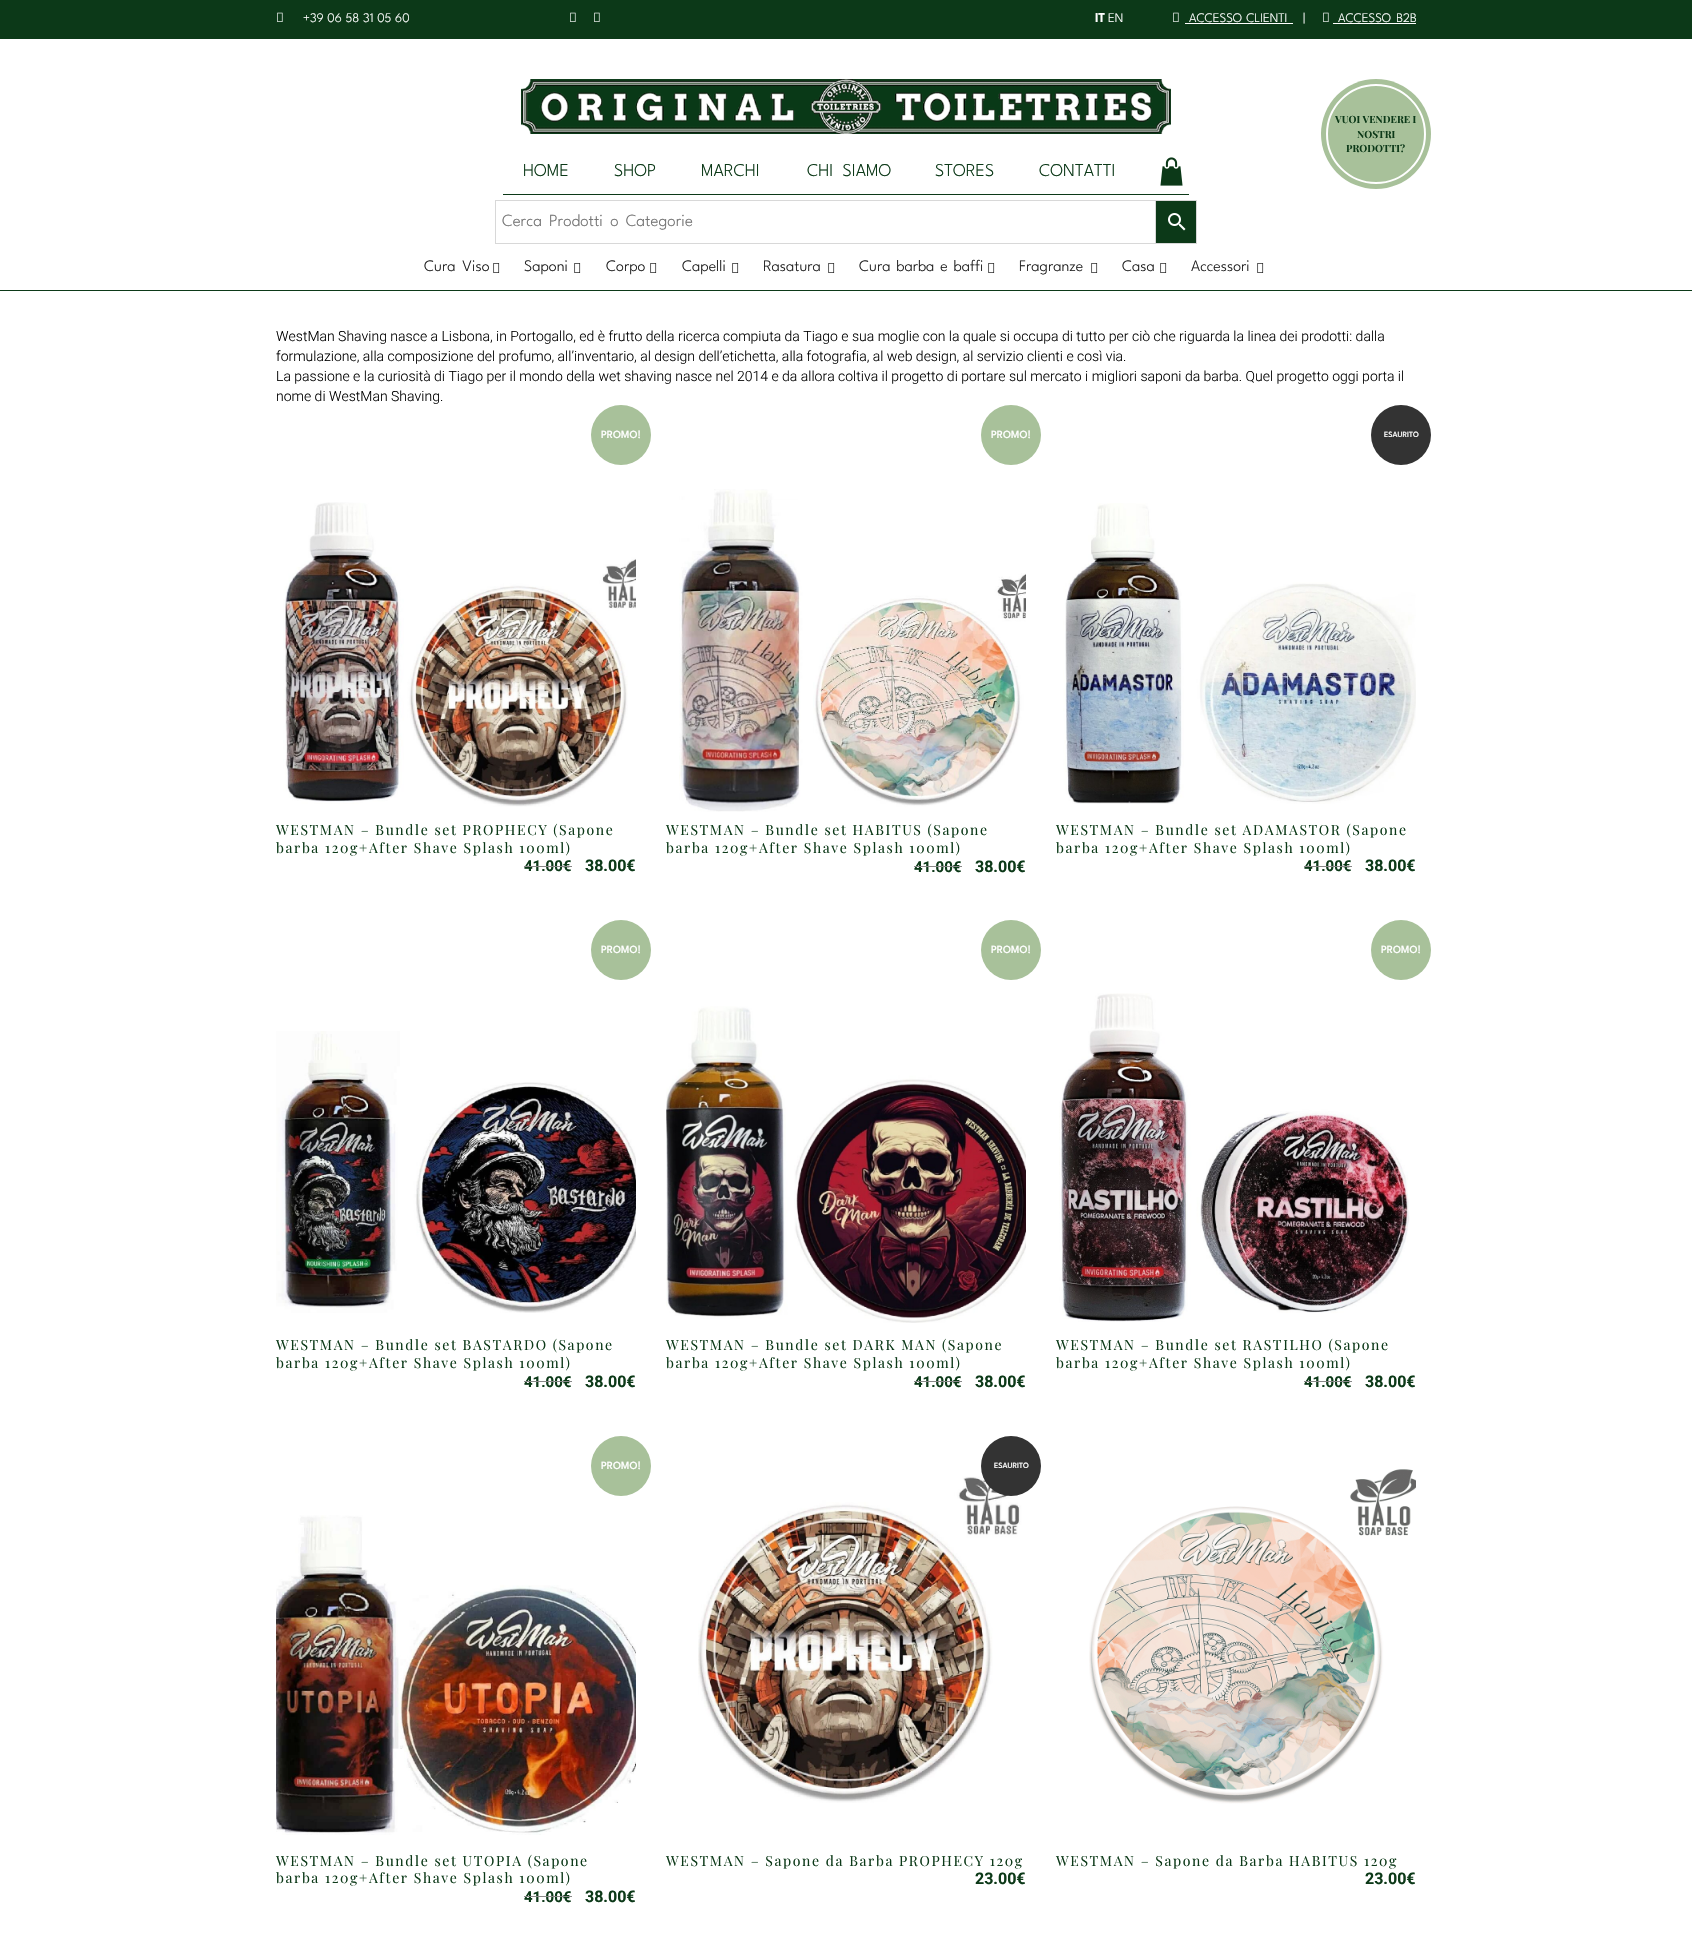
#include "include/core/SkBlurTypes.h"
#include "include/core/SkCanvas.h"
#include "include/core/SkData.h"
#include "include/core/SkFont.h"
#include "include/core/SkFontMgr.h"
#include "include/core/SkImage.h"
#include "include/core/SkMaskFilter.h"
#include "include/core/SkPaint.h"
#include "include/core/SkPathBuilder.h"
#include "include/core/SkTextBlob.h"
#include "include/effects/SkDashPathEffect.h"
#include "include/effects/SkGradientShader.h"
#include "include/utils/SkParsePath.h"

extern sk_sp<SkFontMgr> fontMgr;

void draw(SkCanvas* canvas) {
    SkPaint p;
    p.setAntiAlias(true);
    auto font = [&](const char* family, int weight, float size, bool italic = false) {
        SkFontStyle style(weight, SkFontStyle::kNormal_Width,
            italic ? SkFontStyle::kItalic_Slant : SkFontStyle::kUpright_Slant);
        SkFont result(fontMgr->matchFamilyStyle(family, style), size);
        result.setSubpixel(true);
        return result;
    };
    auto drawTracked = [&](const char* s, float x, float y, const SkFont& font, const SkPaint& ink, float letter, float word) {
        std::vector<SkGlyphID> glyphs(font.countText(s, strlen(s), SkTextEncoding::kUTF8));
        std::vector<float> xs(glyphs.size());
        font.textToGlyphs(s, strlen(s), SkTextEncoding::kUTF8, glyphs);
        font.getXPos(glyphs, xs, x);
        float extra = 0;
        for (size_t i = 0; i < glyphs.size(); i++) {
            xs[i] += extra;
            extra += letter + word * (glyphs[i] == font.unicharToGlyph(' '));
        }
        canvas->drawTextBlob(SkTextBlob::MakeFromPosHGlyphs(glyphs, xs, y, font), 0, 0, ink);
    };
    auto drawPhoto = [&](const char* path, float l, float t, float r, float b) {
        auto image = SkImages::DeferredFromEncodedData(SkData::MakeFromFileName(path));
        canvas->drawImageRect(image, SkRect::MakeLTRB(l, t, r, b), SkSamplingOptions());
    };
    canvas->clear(0xFFFFFFFF);
    p.setColor(0xFF0C3918);
    canvas->drawRect(SkRect::MakeLTRB(0, 0, 1692, 39), p);
    drawPhoto("media/1.png", 277, 12, 283, 22);
    auto font1 = font("League Spartan", 300, 13);
    p.setColor(0xFFFFFFFF);
    drawTracked("+39 06 58 31 05 60", 303, 22, font1, p, 0, 0.5f);
    drawPhoto("media/1.png", 570, 12, 576, 22);
    drawPhoto("media/1.png", 594, 12, 600, 22);
    auto font2 = font("League Spartan", 700, 13);
    canvas->drawString("IT", 1095, 22, font2, p);
    canvas->drawString("EN", 1108, 22, font1, p);
    drawPhoto("media/1.png", 1173, 12, 1179, 22);
    drawTracked("ACCESSO CLIENTI", 1189, 22, font1, p, 0, 1);
    canvas->drawRect(SkRect::MakeLTRB(1185, 23, 1293, 24), p);
    canvas->drawString("|", 1303, 22, font1, p);
    drawPhoto("media/1.png", 1323, 12, 1329, 22);
    drawTracked("ACCESSO B2B", 1338, 22, font1, p, 0, 2);
    canvas->drawRect(SkRect::MakeLTRB(1333, 23, 1416, 24), p);
    drawPhoto("media/2.png", 521, 79, 1171, 134);
    p.setColor(0xFF0C3918);
    canvas->drawRect(SkRect::MakeLTRB(0, 290, 1692, 291), p);
    p.setColor(0xFFA8C19A);
    canvas->drawCircle(1376, 134, 55, p);
    p.setStyle(SkPaint::kStroke_Style);
    p.setStrokeWidth(2);
    p.setColor(0xFFFFFFFF);
    canvas->drawCircle(1376, 134, 49, p);
    auto font3 = font("Playfair Display", 700, 10);
    p.setStyle(SkPaint::kFill_Style);
    p.setColor(0xFF0C3918);
    {
        const struct { const char* s; float x, y; } items[] = {
            {"VUOI VENDERE I", 1335, 123},
            {"NOSTRI", 1357, 138},
            {"PRODOTTI?", 1346, 152},
        };
        for (auto [s, x, y] : items) {
            canvas->drawString(s, x, y, font3, p);
        }
    }
    canvas->drawRect(SkRect::MakeLTRB(503, 194, 1189, 195), p);
    auto font4 = font("League Spartan", 300, 18);
    {
        const struct { const char* s; float x, y; } items[] = {
            {"HOME", 523, 176},
            {"SHOP", 614, 176},
            {"MARCHI", 701, 176},
        };
        for (auto [s, x, y] : items) {
            canvas->drawString(s, x, y, font4, p);
        }
    }
    drawTracked("CHI SIAMO", 807, 176, font4, p, 0, 5);
    canvas->drawString("STORES", 935, 176, font4, p);
    canvas->drawString("CONTATTI", 1039, 176, font4, p);
    drawPhoto("media/3.png", 1160, 157, 1183, 186);
    canvas->drawRect(SkRect::MakeLTRB(1155.5f, 200.5f, 1196.5f, 243.5f), p);
    p.setStyle(SkPaint::kStroke_Style);
    p.setStrokeWidth(1);
    p.setColor(0xFFD8D8D8);
    canvas->drawRect(SkRect::MakeLTRB(1155.5f, 200.5f, 1196.5f, 243.5f), p);
    canvas->drawRect(SkRect::MakeLTRB(495.5f, 200.5f, 1155.5f, 243.5f), p);
    auto font5 = font("League Spartan", 300, 17);
    p.setStyle(SkPaint::kFill_Style);
    p.setColor(0xFF757575);
    drawTracked("Cerca Prodotti o Categorie", 502, 226, font5, p, 0, 3);
    drawPhoto("media/4.png", 1168, 213, 1186, 231);
    auto font6 = font("League Spartan", 300, 16);
    p.setColor(0xFF222222);
    drawTracked("Cura Viso", 424, 271, font6, p, 0, 3);
    drawPhoto("media/5.png", 493, 263, 500, 273);
    canvas->drawString("Saponi", 524, 271, font6, p);
    drawPhoto("media/5.png", 574, 263, 581, 273);
    canvas->drawString("Corpo", 606, 271, font6, p);
    drawPhoto("media/5.png", 650, 263, 657, 273);
    canvas->drawString("Capelli", 682, 271, font6, p);
    drawPhoto("media/5.png", 732, 263, 739, 273);
    canvas->drawString("Rasatura", 763, 271, font6, p);
    drawPhoto("media/5.png", 828, 263, 835, 273);
    drawTracked("Cura barba e baffi", 859, 271, font6, p, 0, 2);
    drawPhoto("media/5.png", 988, 263, 995, 273);
    canvas->drawString("Fragranze", 1019, 271, font6, p);
    drawPhoto("media/5.png", 1091, 263, 1098, 273);
    canvas->drawString("Casa", 1122, 271, font6, p);
    drawPhoto("media/5.png", 1160, 263, 1167, 273);
    canvas->drawString("Accessori", 1191, 271, font6, p);
    drawPhoto("media/5.png", 1257, 263, 1264, 273);
    auto font7 = font("Roboto", 300, 14);
    p.setColor(0xFF000000);
    {
        const struct { const char* s; float x, y; } items[] = {
            {"WestMan Shaving nasce a Lisbona, in Portogallo, ed è frutto della ricerca compiuta da Tiago e sua moglie con la quale si occupa di tutto per ciò che riguarda la linea dei prodotti: dalla", 276, 341},
            {"formulazione, alla composizione del profumo, all’inventario, al design dell’etichetta, alla fotografia, al web design, al servizio clienti e così via.", 276, 361},
            {"La passione e la curiosità di Tiago per il mondo della wet shaving nasce nel 2014 e da allora coltiva il progetto di portare sul mercato i migliori saponi da barba. Quel progetto oggi porta il", 276, 381},
            {"nome di WestMan Shaving.", 276, 401},
        };
        for (auto [s, x, y] : items) {
            canvas->drawString(s, x, y, font7, p);
        }
    }
    p.setColor(0xFFA8C19A);
    canvas->drawCircle(621, 435, 30, p);
    auto font8 = font("League Spartan", 500, 11);
    p.setColor(0xFFFFFFFF);
    canvas->drawString("PROMO!", 601, 438, font8, p);
    drawPhoto("media/6.png", 283, 502, 636, 807);
    auto font9 = font("Playfair Display", 400, 14);
    p.setColor(0xFF0C3918);
    drawTracked("WESTMAN – Bundle set PROPHECY (Sapone", 276, 835, font9, p, 1.6f, 0);
    drawTracked("barba 120g+After Shave Splash 100ml)", 276, 853, font9, p, 1.6f, 0);
    auto font10 = font("Roboto", 700, 15);
    canvas->drawString("41.00€", 524, 871, font10, p);
    p.setColor(0xFF888888);
    canvas->drawRect(SkRect::MakeLTRB(524, 866, 572, 867), p);
    auto font11 = font("Roboto", 700, 16);
    p.setColor(0xFF0C3918);
    canvas->drawString("38.00€", 585, 871, font11, p);
    p.setColor(0xFFA8C19A);
    canvas->drawCircle(1011, 435, 30, p);
    p.setColor(0xFFFFFFFF);
    canvas->drawString("PROMO!", 991, 438, font8, p);
    drawPhoto("media/7.png", 679, 489, 1026, 812);
    p.setColor(0xFF0C3918);
    drawTracked("WESTMAN – Bundle set HABITUS (Sapone", 666, 835, font9, p, 1.6f, 0);
    drawTracked("barba 120g+After Shave Splash 100ml)", 666, 853, font9, p, 1.6f, 0);
    canvas->drawString("41.00€", 914, 872, font10, p);
    p.setColor(0xFF888888);
    canvas->drawRect(SkRect::MakeLTRB(914, 866, 962, 867), p);
    p.setColor(0xFF0C3918);
    canvas->drawString("38.00€", 975, 872, font11, p);
    p.setColor(0xFF333333);
    canvas->drawCircle(1401, 435, 30, p);
    auto font12 = font("League Spartan", 500, 8);
    p.setColor(0xFFFFFFFF);
    canvas->drawString("ESAURITO", 1384, 437, font12, p);
    drawPhoto("media/8.png", 1063, 503, 1416, 804);
    p.setColor(0xFF0C3918);
    drawTracked("WESTMAN – Bundle set ADAMASTOR (Sapone", 1056, 835, font9, p, 1.6f, 0);
    drawTracked("barba 120g+After Shave Splash 100ml)", 1056, 853, font9, p, 1.6f, 0);
    canvas->drawString("41.00€", 1304, 871, font10, p);
    p.setColor(0xFF888888);
    canvas->drawRect(SkRect::MakeLTRB(1304, 866, 1352, 867), p);
    p.setColor(0xFF0C3918);
    canvas->drawString("38.00€", 1365, 871, font11, p);
    p.setColor(0xFFA8C19A);
    canvas->drawCircle(621, 950, 30, p);
    p.setColor(0xFFFFFFFF);
    canvas->drawString("PROMO!", 601, 953, font8, p);
    drawPhoto("media/9.png", 276, 1031, 636, 1313);
    p.setColor(0xFF0C3918);
    drawTracked("WESTMAN – Bundle set BASTARDO (Sapone", 276, 1350, font9, p, 1.6f, 0);
    drawTracked("barba 120g+After Shave Splash 100ml)", 276, 1368, font9, p, 1.6f, 0);
    canvas->drawString("41.00€", 524, 1387, font10, p);
    p.setColor(0xFF888888);
    canvas->drawRect(SkRect::MakeLTRB(524, 1381, 572, 1382), p);
    p.setColor(0xFF0C3918);
    canvas->drawString("38.00€", 585, 1387, font11, p);
    p.setColor(0xFFA8C19A);
    canvas->drawCircle(1011, 950, 30, p);
    p.setColor(0xFFFFFFFF);
    canvas->drawString("PROMO!", 991, 953, font8, p);
    drawPhoto("media/10.png", 666, 1006, 1026, 1323);
    p.setColor(0xFF0C3918);
    drawTracked("WESTMAN – Bundle set DARK MAN (Sapone", 666, 1350, font9, p, 1.6f, 0);
    drawTracked("barba 120g+After Shave Splash 100ml)", 666, 1368, font9, p, 1.6f, 0);
    canvas->drawString("41.00€", 914, 1387, font10, p);
    p.setColor(0xFF888888);
    canvas->drawRect(SkRect::MakeLTRB(914, 1381, 962, 1382), p);
    p.setColor(0xFF0C3918);
    canvas->drawString("38.00€", 975, 1387, font11, p);
    p.setColor(0xFFA8C19A);
    canvas->drawCircle(1401, 950, 30, p);
    p.setColor(0xFFFFFFFF);
    canvas->drawString("PROMO!", 1381, 953, font8, p);
    drawPhoto("media/11.png", 1059, 993, 1410, 1322);
    p.setColor(0xFF0C3918);
    drawTracked("WESTMAN – Bundle set RASTILHO (Sapone", 1056, 1350, font9, p, 1.6f, 0);
    drawTracked("barba 120g+After Shave Splash 100ml)", 1056, 1368, font9, p, 1.6f, 0);
    canvas->drawString("41.00€", 1304, 1387, font10, p);
    p.setColor(0xFF888888);
    canvas->drawRect(SkRect::MakeLTRB(1304, 1381, 1352, 1382), p);
    p.setColor(0xFF0C3918);
    canvas->drawString("38.00€", 1365, 1387, font11, p);
    p.setColor(0xFFA8C19A);
    canvas->drawCircle(621, 1466, 30, p);
    p.setColor(0xFFFFFFFF);
    canvas->drawString("PROMO!", 601, 1469, font8, p);
    drawPhoto("media/12.png", 276, 1515, 636, 1835);
    p.setColor(0xFF0C3918);
    drawTracked("WESTMAN – Bundle set UTOPIA (Sapone", 276, 1866, font9, p, 1.6f, 0);
    drawTracked("barba 120g+After Shave Splash 100ml)", 276, 1883, font9, p, 1.6f, 0);
    canvas->drawString("41.00€", 524, 1902, font10, p);
    p.setColor(0xFF888888);
    canvas->drawRect(SkRect::MakeLTRB(524, 1896, 572, 1897), p);
    p.setColor(0xFF0C3918);
    canvas->drawString("38.00€", 585, 1902, font11, p);
    drawPhoto("media/13.png", 698, 1467, 1026, 1803);
    p.setColor(0xFF333333);
    canvas->drawCircle(1011, 1466, 30, p);
    p.setColor(0xFFFFFFFF);
    canvas->drawString("ESAURITO", 994, 1468, font12, p);
    p.setColor(0xFF0C3918);
    drawTracked("WESTMAN – Sapone da Barba PROPHECY 120g", 666, 1866, font9, p, 1.6f, 0);
    canvas->drawString("23.00€", 975, 1884, font11, p);
    drawPhoto("media/14.png", 1089, 1469, 1416, 1804);
    drawTracked("WESTMAN – Sapone da Barba HABITUS 120g", 1056, 1866, font9, p, 1.6f, 0);
    canvas->drawString("23.00€", 1365, 1884, font11, p);
}
